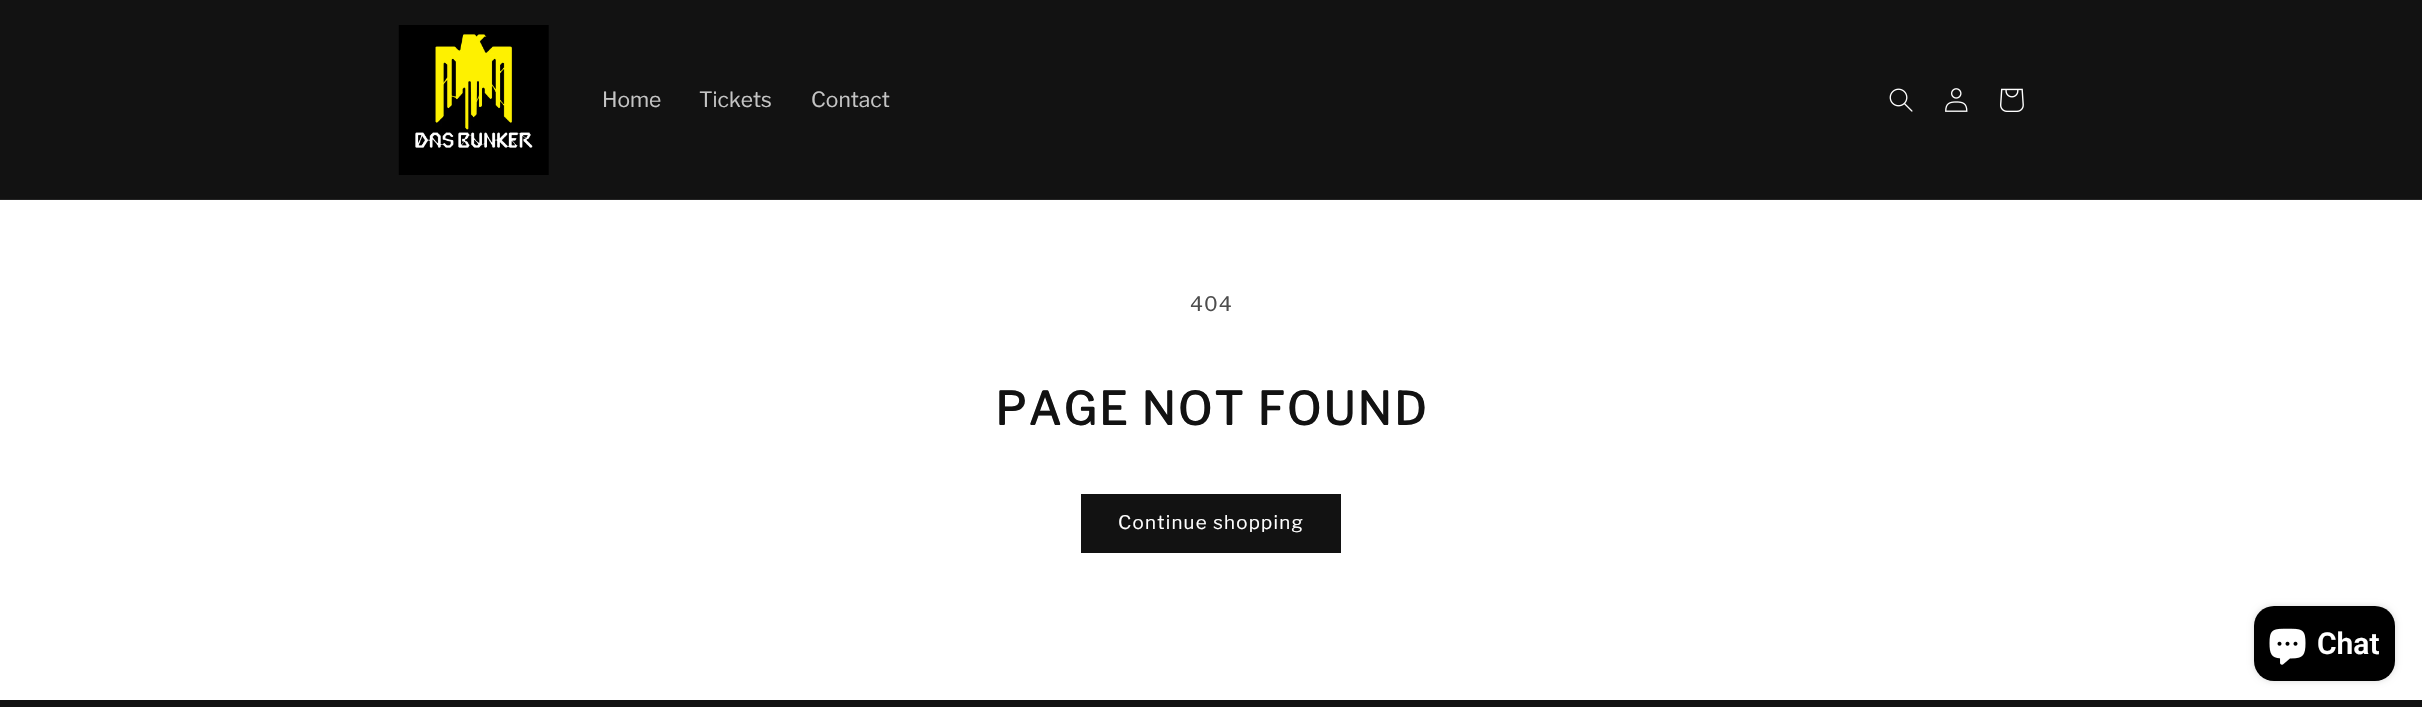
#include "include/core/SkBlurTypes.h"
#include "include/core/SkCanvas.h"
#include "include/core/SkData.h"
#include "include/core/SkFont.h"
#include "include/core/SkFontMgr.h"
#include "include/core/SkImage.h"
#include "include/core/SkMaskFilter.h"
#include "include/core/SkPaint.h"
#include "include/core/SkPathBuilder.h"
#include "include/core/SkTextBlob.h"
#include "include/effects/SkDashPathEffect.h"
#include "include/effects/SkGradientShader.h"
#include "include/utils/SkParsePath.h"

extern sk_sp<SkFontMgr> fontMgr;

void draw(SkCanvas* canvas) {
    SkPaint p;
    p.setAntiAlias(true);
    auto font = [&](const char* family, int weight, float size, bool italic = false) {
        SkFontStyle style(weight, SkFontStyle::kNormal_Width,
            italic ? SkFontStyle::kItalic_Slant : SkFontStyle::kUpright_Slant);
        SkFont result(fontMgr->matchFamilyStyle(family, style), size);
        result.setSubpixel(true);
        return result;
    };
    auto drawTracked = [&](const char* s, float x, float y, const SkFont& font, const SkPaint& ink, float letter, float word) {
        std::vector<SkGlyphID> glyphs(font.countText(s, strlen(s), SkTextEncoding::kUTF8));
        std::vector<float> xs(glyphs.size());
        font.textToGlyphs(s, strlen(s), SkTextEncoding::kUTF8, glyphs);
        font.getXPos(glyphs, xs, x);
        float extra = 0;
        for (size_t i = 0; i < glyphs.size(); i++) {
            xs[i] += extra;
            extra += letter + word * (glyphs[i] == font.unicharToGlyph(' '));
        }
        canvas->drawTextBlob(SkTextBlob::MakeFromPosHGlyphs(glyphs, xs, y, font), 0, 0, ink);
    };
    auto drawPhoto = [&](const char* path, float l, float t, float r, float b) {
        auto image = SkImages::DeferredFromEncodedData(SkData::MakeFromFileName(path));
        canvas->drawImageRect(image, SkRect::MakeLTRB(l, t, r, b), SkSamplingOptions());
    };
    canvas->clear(0xFFFFFFFF);
    p.setColor(0xFF121212);
    canvas->drawRect(SkRect::MakeLTRB(0, 0, 2422, 199), p);
    p.setColor(0xFF252525);
    canvas->drawRect(SkRect::MakeLTRB(0, 199, 2422, 200), p);
    drawPhoto("media/1.png", 398, 25, 549, 175);
    auto font1 = font("Libre Franklin", 400, 21);
    p.setColor(0xFFC4C4C4);
    {
        const struct { const char* s; float x, y; } items[] = {
            {"Home", 602, 107},
            {"Tickets", 699, 107},
            {"Contact", 811, 107},
        };
        for (auto [s, x, y] : items) {
            canvas->drawString(s, x, y, font1, p);
        }
    }
    drawPhoto("media/2.png", 1889, 88, 1913, 112);
    drawPhoto("media/3.png", 1945, 88, 1968, 112);
    drawPhoto("media/4.png", 2000, 88, 2024, 112);
    auto font2 = font("Libre Franklin", 400, 20);
    p.setColor(0xFF4D4D4D);
    drawTracked("404", 1190, 311, font2, p, 1, 0);
    auto font3 = font("Libre Franklin", 700, 45);
    p.setColor(0xFF121212);
    drawTracked("PAGE NOT FOUND", 995, 425, font3, p, 2.25f, 0);
    canvas->drawRect(SkRect::MakeLTRB(1081, 494, 1341, 553), p);
    auto font4 = font("Libre Franklin", 400, 18.75f);
    p.setColor(0xFFFFFFFF);
    drawTracked("Continue shopping", 1118, 529, font4, p, 1.25f, 0);
    p.setColor(0x26000000);
    p.setMaskFilter(SkMaskFilter::MakeBlur(kNormal_SkBlurStyle, 3));
    canvas->drawRoundRect(SkRect::MakeLTRB(2254, 606, 2395, 681), 20, 20, p);
    p.setMaskFilter(nullptr);
    p.setColor(0xFF000000);
    canvas->drawRoundRect(SkRect::MakeLTRB(2254, 606, 2395, 681), 20, 20, p);
    drawPhoto("media/5.png", 2269, 628, 2306, 665);
    auto font5 = font("Roboto", 600, 30);
    p.setColor(0xFFFFFFFF);
    canvas->drawString("Chat", 2317, 654, font5, p);
    p.setColor(0xFF121212);
    canvas->drawRect(SkRect::MakeLTRB(0, 700, 2422, 707), p);
}
